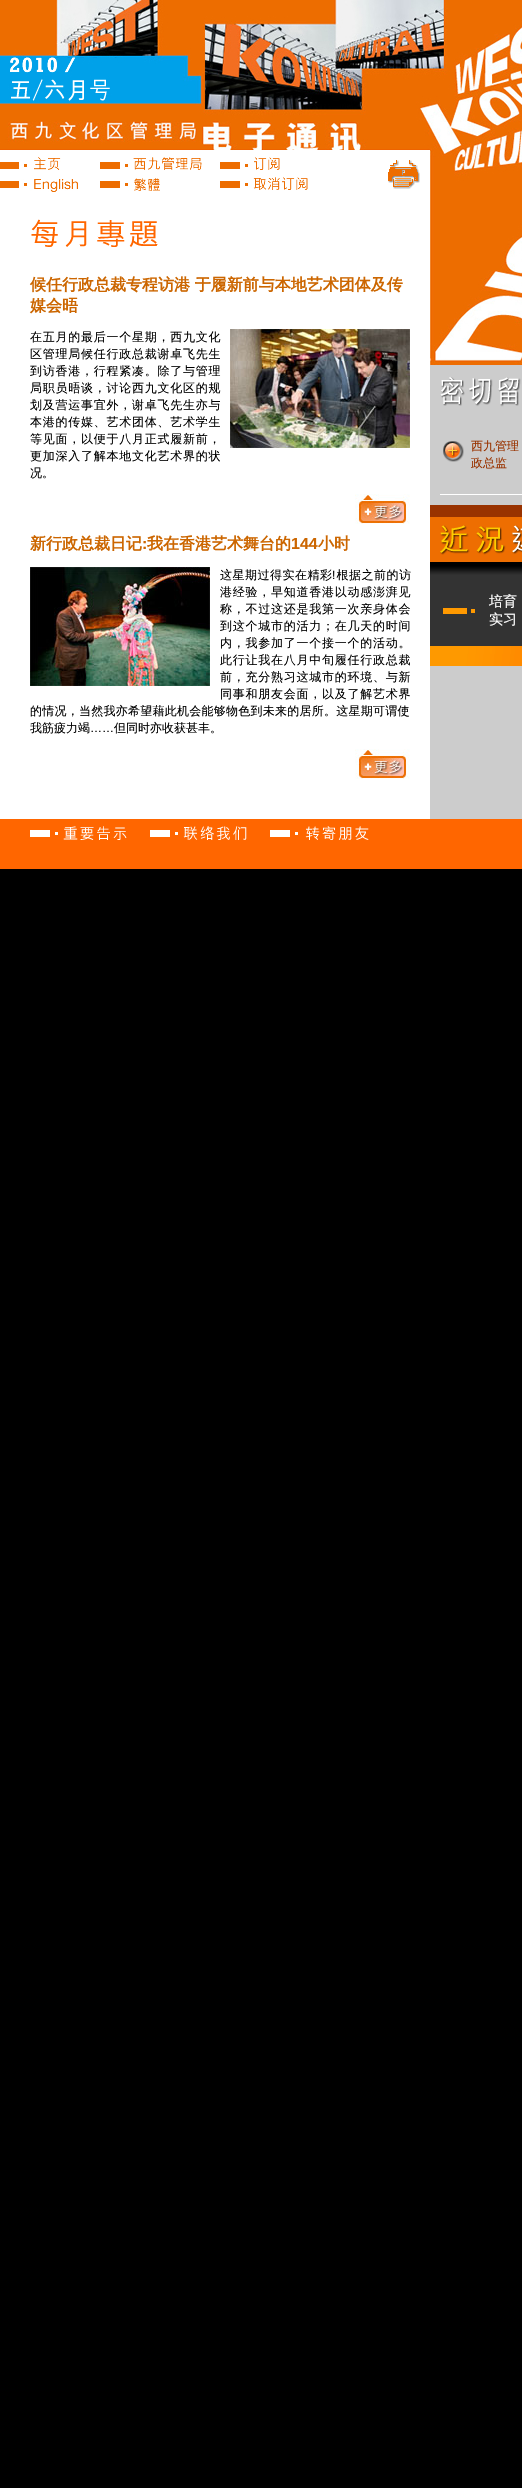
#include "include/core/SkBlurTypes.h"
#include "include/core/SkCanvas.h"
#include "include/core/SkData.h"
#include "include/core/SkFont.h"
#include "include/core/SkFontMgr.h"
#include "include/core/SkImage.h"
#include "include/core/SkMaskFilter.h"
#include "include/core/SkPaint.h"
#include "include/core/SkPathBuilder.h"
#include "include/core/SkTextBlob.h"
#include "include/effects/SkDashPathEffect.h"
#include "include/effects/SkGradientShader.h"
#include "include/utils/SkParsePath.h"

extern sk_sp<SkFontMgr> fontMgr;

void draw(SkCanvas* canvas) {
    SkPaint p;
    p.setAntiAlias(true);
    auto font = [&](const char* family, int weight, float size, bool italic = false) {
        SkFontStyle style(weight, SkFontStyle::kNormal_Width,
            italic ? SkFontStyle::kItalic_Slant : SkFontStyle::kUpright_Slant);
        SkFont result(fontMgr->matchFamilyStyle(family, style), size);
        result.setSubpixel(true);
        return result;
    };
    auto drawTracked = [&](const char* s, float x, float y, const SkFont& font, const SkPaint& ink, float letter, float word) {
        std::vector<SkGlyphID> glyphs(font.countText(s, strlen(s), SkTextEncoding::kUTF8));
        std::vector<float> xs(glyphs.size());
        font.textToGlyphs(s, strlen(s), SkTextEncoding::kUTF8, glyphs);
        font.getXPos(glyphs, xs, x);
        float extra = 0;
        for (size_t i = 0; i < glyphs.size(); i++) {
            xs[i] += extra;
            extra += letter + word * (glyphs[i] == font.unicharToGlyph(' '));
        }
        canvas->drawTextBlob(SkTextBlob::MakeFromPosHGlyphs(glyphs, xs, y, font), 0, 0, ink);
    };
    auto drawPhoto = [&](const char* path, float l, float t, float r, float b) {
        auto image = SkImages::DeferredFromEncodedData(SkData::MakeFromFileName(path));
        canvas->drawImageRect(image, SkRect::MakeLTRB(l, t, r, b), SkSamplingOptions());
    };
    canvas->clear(0xFF000000);
    drawPhoto("media/1.png", 0, 0, 522, 150);
    p.setColor(0xFFFFFFFF);
    canvas->drawRect(SkRect::MakeLTRB(0, 150, 430, 819), p);
    drawPhoto("media/2.png", 0, 157, 61, 170);
    drawPhoto("media/3.png", 0, 179, 78, 192);
    drawPhoto("media/4.png", 100, 157, 202, 170);
    drawPhoto("media/5.png", 100, 178, 160, 191);
    drawPhoto("media/6.png", 220, 157, 280, 170);
    drawPhoto("media/7.png", 220, 177, 308, 190);
    drawPhoto("media/8.png", 388, 160, 420, 189);
    drawPhoto("media/9.png", 31, 219, 158, 247);
    auto font1 = font("WenQuanYi Zen Hei", 700, 16);
    p.setColor(0xFFCC6600);
    canvas->drawString("候任行政总裁专程访港 于履新前与本地艺术团体及传", 30, 290, font1, p);
    canvas->drawString("媒会晤", 30, 311, font1, p);
    auto font2 = font("WenQuanYi Zen Hei", 500, 12);
    p.setColor(0xFF000000);
    drawTracked("在五月的最后一个星期，西九文化", 30, 341, font2, p, 0.75f, 0);
    drawPhoto("media/10.png", 230, 329, 410, 448);
    {
        const struct { const char* s; float x, y; } items[] = {
            {"区管理局候任行政总裁谢卓飞先生", 30, 358},
            {"到访香港，行程紧凑。除了与管理", 30, 375},
            {"局职员晤谈，讨论西九文化区的规", 30, 392},
            {"划及营运事宜外，谢卓飞先生亦与", 30, 409},
            {"本港的传媒、艺术团体、艺术学生", 30, 426},
            {"等见面，以便于八月正式履新前，", 30, 443},
            {"更加深入了解本地文化艺术界的状", 30, 460},
        };
        for (auto [s, x, y] : items) {
            drawTracked(s, x, y, font2, p, 0.75f, 0);
        }
    }
    canvas->drawString("况。", 30, 477, font2, p);
    drawPhoto("media/11.png", 355, 494, 410, 524);
    p.setColor(0xFFCC6600);
    canvas->drawString("新行政总裁日记", 30, 549, font1, p);
    auto font3 = font("Liberation Sans", 700, 16);
    canvas->drawString(":", 142, 549, font3, p);
    canvas->drawString("我在香港艺术舞台的", 147, 549, font1, p);
    canvas->drawString("144", 291, 549, font3, p);
    canvas->drawString("小时", 318, 549, font1, p);
    drawPhoto("media/12.png", 30, 567, 210, 686);
    p.setColor(0xFF000000);
    drawTracked("这星期过得实在精彩 根据之前的访", 220, 579, font2, p, 0.5f, 0);
    auto font4 = font("Liberation Sans", 400, 12);
    drawTracked("!", 332, 579, font4, p, 0.5f, 0);
    {
        const struct { const char* s; float x, y; } items[] = {
            {"港经验，早知道香港以动感澎湃见", 220, 596},
            {"称，不过这还是我第一次亲身体会", 220, 613},
            {"到这个城市的活力；在几天的时间", 220, 630},
            {"内，我参加了一个接一个的活动。", 220, 647},
            {"此行让我在八月中旬履任行政总裁", 220, 664},
            {"前，充分熟习这城市的环境、与新", 220, 681},
            {"同事和朋友会面，以及了解艺术界", 220, 698},
        };
        for (auto [s, x, y] : items) {
            drawTracked(s, x, y, font2, p, 0.75f, 0);
        }
    }
    drawTracked("的情况，当然我亦希望藉此机会能够物色到未来的居所。这星期可谓使", 30, 715, font2, p, 0.25f, 0);
    canvas->drawString("我筋疲力竭", 30, 732, font2, p);
    canvas->drawString("……", 90, 732, font4, p);
    canvas->drawString("但同时亦收获甚丰。", 114, 732, font2, p);
    drawPhoto("media/11.png", 355, 749, 410, 779);
    p.setColor(0xFFCCCCCC);
    canvas->drawRect(SkRect::MakeLTRB(430, 365, 522, 819), p);
    drawPhoto("media/13.png", 430, 150, 522, 365);
    drawPhoto("media/14.png", 440, 377, 521, 407);
    drawPhoto("media/15.png", 443, 441, 464, 462);
    p.setColor(0xFF993300);
    canvas->drawString("西九管理", 471, 450, font2, p);
    canvas->drawString("政总监", 471, 467, font2, p);
    p.setColor(0xFFFFFFFF);
    canvas->drawRect(SkRect::MakeLTRB(440, 494, 522, 495), p);
    drawPhoto("media/16.png", 430, 505, 522, 590);
    p.setColor(0xFF333333);
    canvas->drawRect(SkRect::MakeLTRB(430, 590, 522, 646), p);
    drawPhoto("media/17.png", 443, 608, 475, 614);
    auto font5 = font("WenQuanYi Zen Hei", 500, 14);
    p.setColor(0xFFFFFFFF);
    canvas->drawString("培育", 489, 606, font5, p);
    canvas->drawString("实习", 489, 624, font5, p);
    drawPhoto("media/18.png", 430, 646, 522, 666);
    p.setColor(0xFFFF6600);
    canvas->drawRect(SkRect::MakeLTRB(0, 819, 30, 869), p);
    drawPhoto("media/19.png", 30, 819, 150, 844);
    drawPhoto("media/20.png", 150, 819, 270, 844);
    drawPhoto("media/21.png", 270, 819, 390, 844);
    canvas->drawRect(SkRect::MakeLTRB(390, 819, 522, 869), p);
    canvas->drawRect(SkRect::MakeLTRB(30, 844, 390, 869), p);
}
